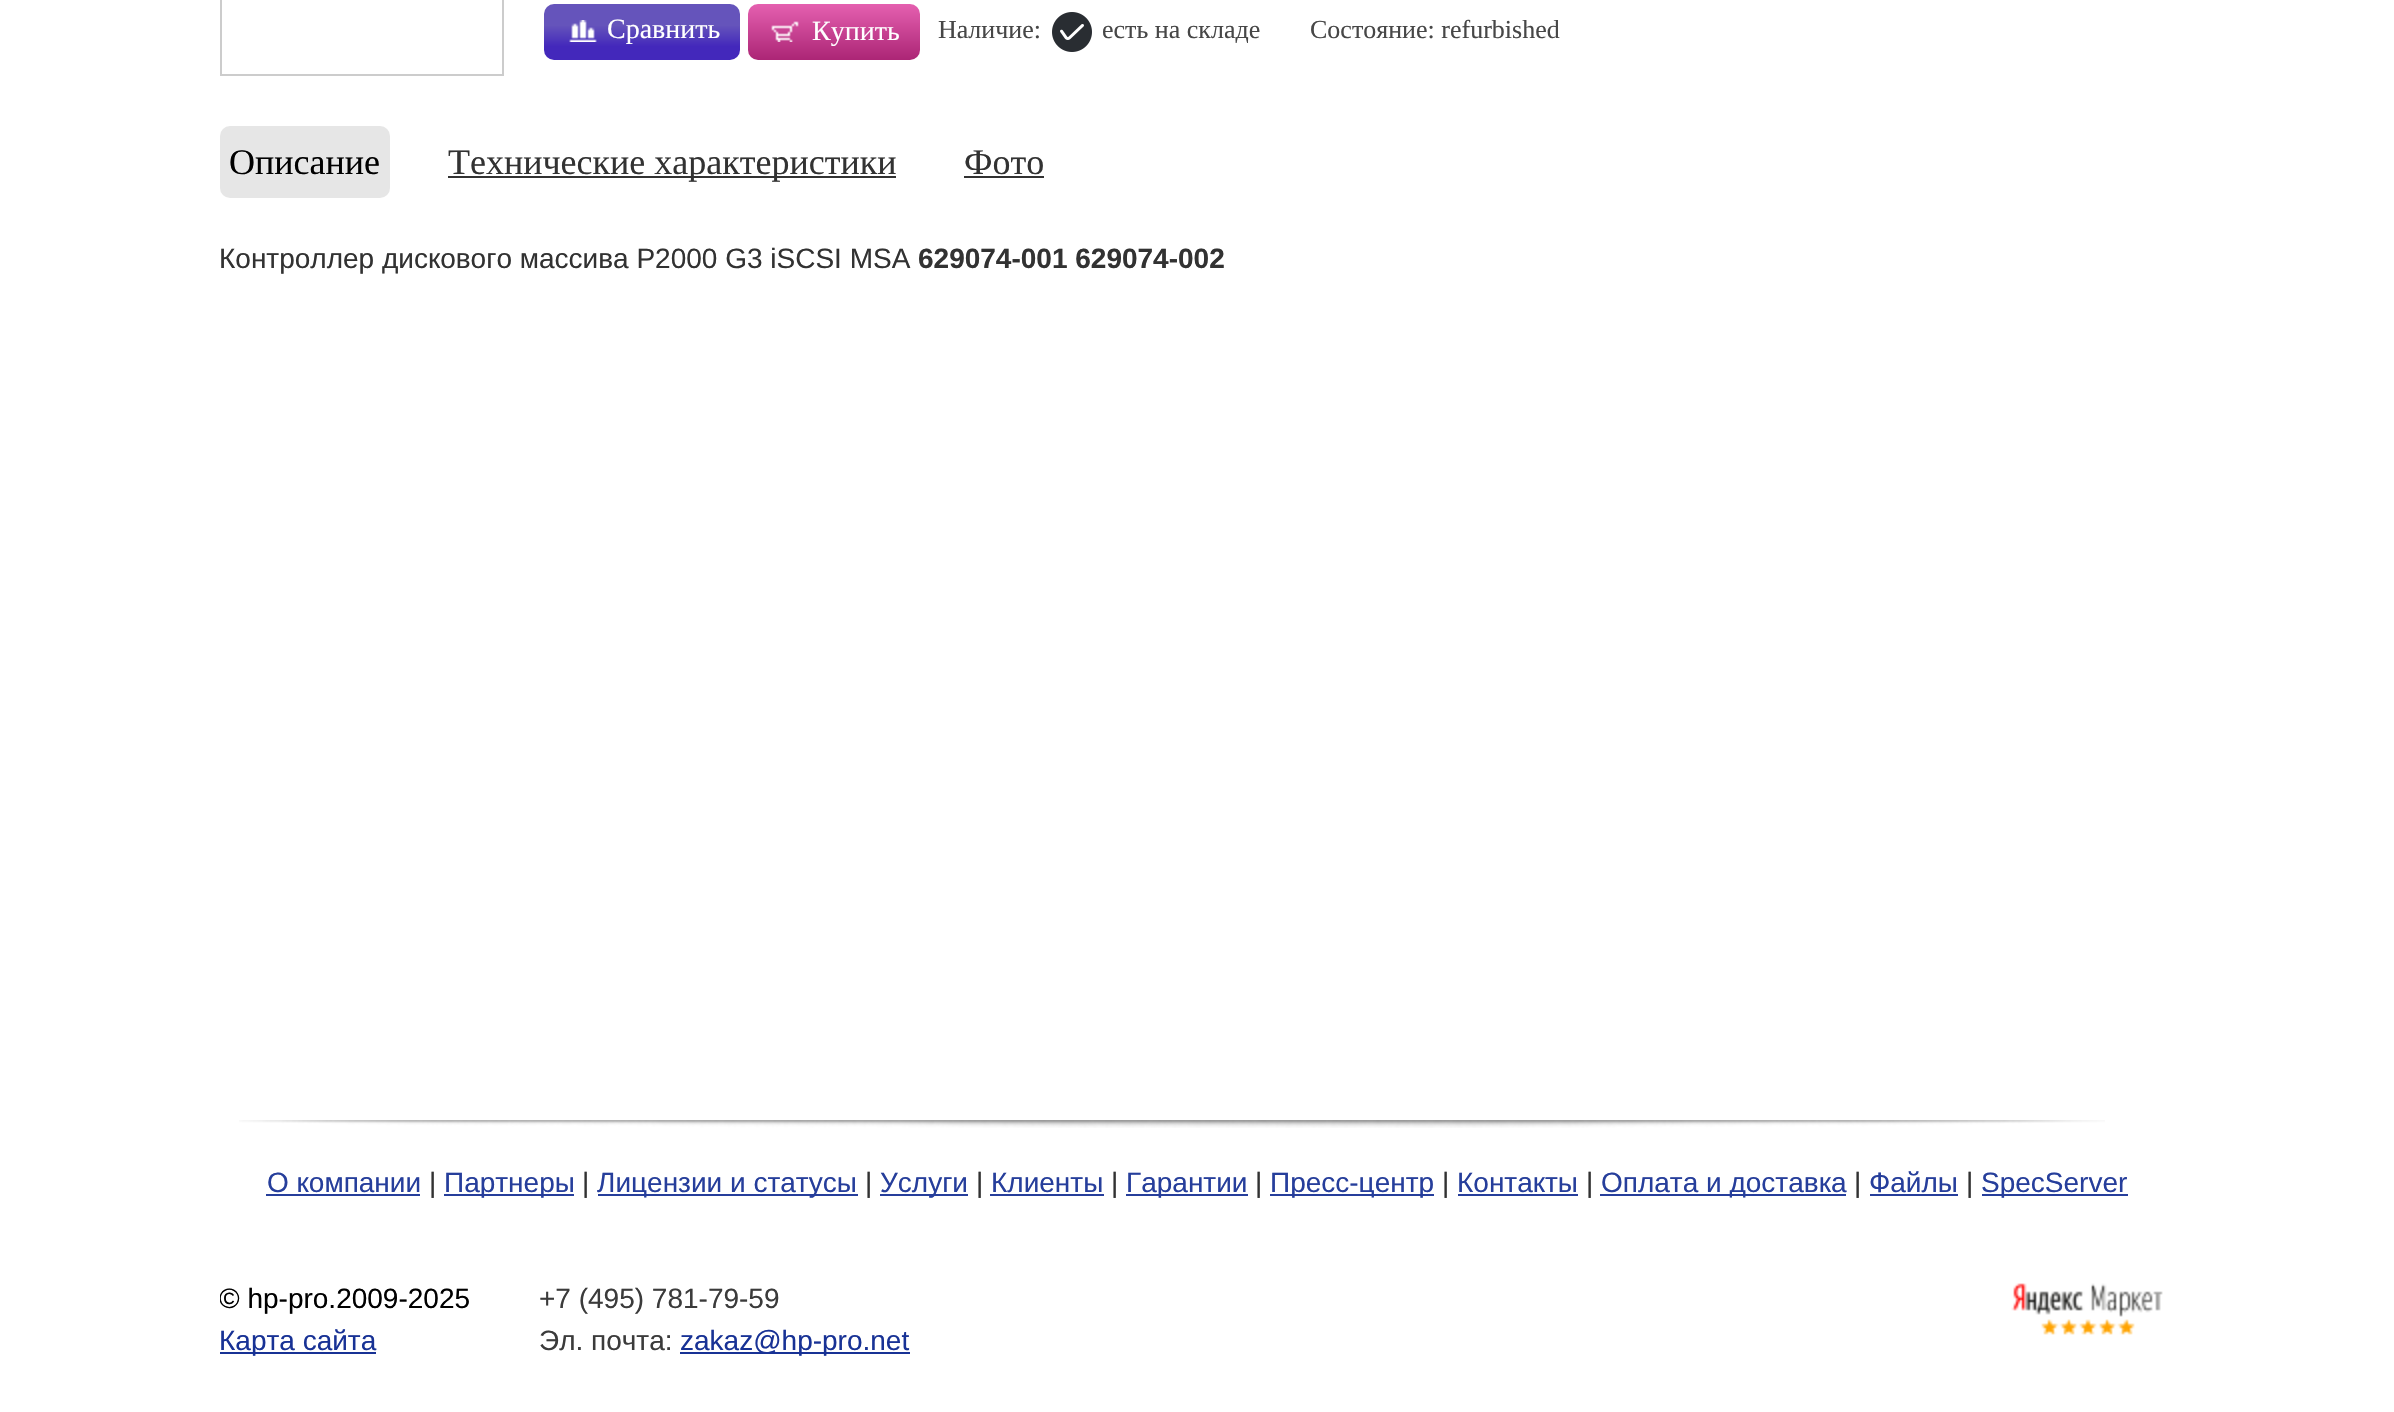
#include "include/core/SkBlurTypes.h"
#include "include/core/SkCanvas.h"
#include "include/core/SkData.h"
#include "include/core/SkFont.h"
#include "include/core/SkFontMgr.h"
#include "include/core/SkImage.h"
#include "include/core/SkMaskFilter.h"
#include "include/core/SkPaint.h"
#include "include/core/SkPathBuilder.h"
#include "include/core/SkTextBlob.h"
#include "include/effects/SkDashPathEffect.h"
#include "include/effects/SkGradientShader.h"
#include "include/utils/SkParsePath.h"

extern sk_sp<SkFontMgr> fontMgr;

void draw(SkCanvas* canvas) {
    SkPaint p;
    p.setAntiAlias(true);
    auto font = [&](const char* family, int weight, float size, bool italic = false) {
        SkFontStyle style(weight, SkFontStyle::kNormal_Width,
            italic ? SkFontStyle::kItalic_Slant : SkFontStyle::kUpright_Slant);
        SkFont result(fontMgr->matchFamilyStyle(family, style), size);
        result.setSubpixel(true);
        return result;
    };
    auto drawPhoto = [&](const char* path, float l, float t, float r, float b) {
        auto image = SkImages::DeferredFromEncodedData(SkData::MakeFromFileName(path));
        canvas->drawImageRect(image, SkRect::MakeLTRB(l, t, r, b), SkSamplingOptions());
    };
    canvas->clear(0xFFFFFFFF);
    p.setStyle(SkPaint::kStroke_Style);
    p.setStrokeWidth(2);
    p.setColor(0xFFCCCCCC);
    canvas->drawRect(SkRect::MakeLTRB(221, -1, 503, 75), p);
    p.setStyle(SkPaint::kFill_Style);
    {
        const SkColor colors[] = {0xFF4328BB, 0xFF6554BB};
        const float stops[] = {0.24f, 0.62f};
        const SkPoint ends[] = {{544, 60}, {544, 4}};
        p.setShader(SkGradientShader::MakeLinear(ends, colors, stops, 2, SkTileMode::kClamp));
        p.setAlpha(255);
    }
    canvas->drawRoundRect(SkRect::MakeLTRB(544, 4, 740, 60), 10, 10, p);
    drawPhoto("media/1.png", 569, 20, 597, 42);
    auto font1 = font("Liberation Serif", 400, 28);
    p.setShader(nullptr);
    p.setColor(0xFFFFFFFF);
    canvas->drawString("Сравнить", 607, 38, font1, p);
    {
        const SkColor colors[] = {0xFFAB2575, 0xFFE560B0};
        const float stops[] = {0, 1};
        const SkPoint ends[] = {{834, 60}, {834, 4}};
        p.setShader(SkGradientShader::MakeLinear(ends, colors, stops, 2, SkTileMode::kClamp));
        p.setAlpha(255);
    }
    canvas->drawRoundRect(SkRect::MakeLTRB(748, 4, 920, 60), 10, 10, p);
    drawPhoto("media/2.png", 771, 21, 799, 42);
    p.setShader(nullptr);
    p.setColor(0xFFFFFFFF);
    canvas->drawString("Купить", 812, 40, font1, p);
    auto font2 = font("Liberation Serif", 400, 26);
    p.setColor(0xFF474747);
    canvas->drawString("Наличие:", 938, 38, font2, p);
    drawPhoto("media/3.png", 1052, 12, 1092, 52);
    canvas->drawString("есть на складе", 1102, 38, font2, p);
    canvas->drawString("Состояние: refurbished", 1310, 38, font2, p);
    p.setColor(0xFFE6E6E6);
    canvas->drawRoundRect(SkRect::MakeLTRB(220, 126, 390, 198), 10, 10, p);
    auto font3 = font("Liberation Serif", 400, 36);
    p.setColor(0xFF000000);
    canvas->drawString("Описание", 229, 174, font3, p);
    p.setColor(0xFF323232);
    canvas->drawRect(SkRect::MakeLTRB(448, 176, 896, 178), p);
    canvas->drawString("Технические характеристики", 448, 174, font3, p);
    canvas->drawString("Фото", 964, 174, font3, p);
    canvas->drawRect(SkRect::MakeLTRB(964, 176, 1044, 178), p);
    auto font4 = font("Liberation Sans", 400, 28);
    canvas->drawString("Контроллер дискового массива P2000 G3 iSCSI MSA", 219, 268, font4, p);
    auto font5 = font("Liberation Sans", 700, 28);
    canvas->drawString("629074-001 629074-002", 918, 268, font5, p);
    drawPhoto("media/4.png", 239, 1120, 2105, 1128);
    p.setColor(0xFF263E9B);
    canvas->drawString("О компании", 267, 1192, font4, p);
    canvas->drawRect(SkRect::MakeLTRB(266, 1194, 420, 1196), p);
    p.setColor(0xFF323232);
    canvas->drawString("|", 429, 1192, font4, p);
    p.setColor(0xFF263E9B);
    canvas->drawRect(SkRect::MakeLTRB(444, 1194, 574, 1196), p);
    canvas->drawString("Партнеры", 444, 1192, font4, p);
    p.setColor(0xFF323232);
    canvas->drawString("|", 582, 1192, font4, p);
    p.setColor(0xFF263E9B);
    canvas->drawRect(SkRect::MakeLTRB(598, 1194, 858, 1196), p);
    canvas->drawString("Лицензии и статусы", 597, 1192, font4, p);
    p.setColor(0xFF323232);
    canvas->drawString("|", 865, 1192, font4, p);
    p.setColor(0xFF263E9B);
    canvas->drawRect(SkRect::MakeLTRB(880, 1194, 968, 1196), p);
    canvas->drawString("Услуги", 880, 1192, font4, p);
    p.setColor(0xFF323232);
    canvas->drawString("|", 976, 1192, font4, p);
    p.setColor(0xFF263E9B);
    canvas->drawString("Клиенты", 991, 1192, font4, p);
    canvas->drawRect(SkRect::MakeLTRB(990, 1194, 1104, 1196), p);
    p.setColor(0xFF323232);
    canvas->drawString("|", 1111, 1192, font4, p);
    p.setColor(0xFF263E9B);
    canvas->drawRect(SkRect::MakeLTRB(1126, 1194, 1248, 1196), p);
    canvas->drawString("Гарантии", 1126, 1192, font4, p);
    p.setColor(0xFF323232);
    canvas->drawString("|", 1255, 1192, font4, p);
    p.setColor(0xFF263E9B);
    canvas->drawRect(SkRect::MakeLTRB(1270, 1194, 1434, 1196), p);
    canvas->drawString("Пресс-центр", 1270, 1192, font4, p);
    p.setColor(0xFF323232);
    canvas->drawString("|", 1442, 1192, font4, p);
    p.setColor(0xFF263E9B);
    canvas->drawString("Контакты", 1457, 1192, font4, p);
    canvas->drawRect(SkRect::MakeLTRB(1458, 1194, 1578, 1196), p);
    p.setColor(0xFF323232);
    canvas->drawString("|", 1586, 1192, font4, p);
    p.setColor(0xFF263E9B);
    canvas->drawRect(SkRect::MakeLTRB(1600, 1194, 1846, 1196), p);
    canvas->drawString("Оплата и доставка", 1601, 1192, font4, p);
    p.setColor(0xFF323232);
    canvas->drawString("|", 1854, 1192, font4, p);
    p.setColor(0xFF263E9B);
    canvas->drawString("Файлы", 1869, 1192, font4, p);
    canvas->drawRect(SkRect::MakeLTRB(1870, 1194, 1958, 1196), p);
    p.setColor(0xFF323232);
    canvas->drawString("|", 1966, 1192, font4, p);
    p.setColor(0xFF263E9B);
    canvas->drawRect(SkRect::MakeLTRB(1982, 1194, 2128, 1196), p);
    canvas->drawString("SpecServer", 1981, 1192, font4, p);
    canvas->save();
    canvas->clipRect(SkRect::MakeLTRB(220, 1246, 2176, 1412));
    p.setColor(0xFF000000);
    canvas->drawString("© hp-pro.2009-2025", 219, 1308, font4, p);
    canvas->restore();
    p.setColor(0xFF183295);
    canvas->drawRect(SkRect::MakeLTRB(220, 1352, 376, 1354), p);
    canvas->drawString("Карта сайта", 219, 1350, font4, p);
    p.setColor(0xFF3B3B3B);
    canvas->drawString("+7 (495) 781-79-59", 539, 1308, font4, p);
    canvas->drawString("Эл. почта:", 539, 1350, font4, p);
    p.setColor(0xFF183295);
    canvas->drawRect(SkRect::MakeLTRB(680, 1352, 910, 1354), p);
    canvas->drawString("zakaz@hp-pro.net", 680, 1350, font4, p);
    drawPhoto("media/5.png", 2011, 1283, 2163, 1335);
}
